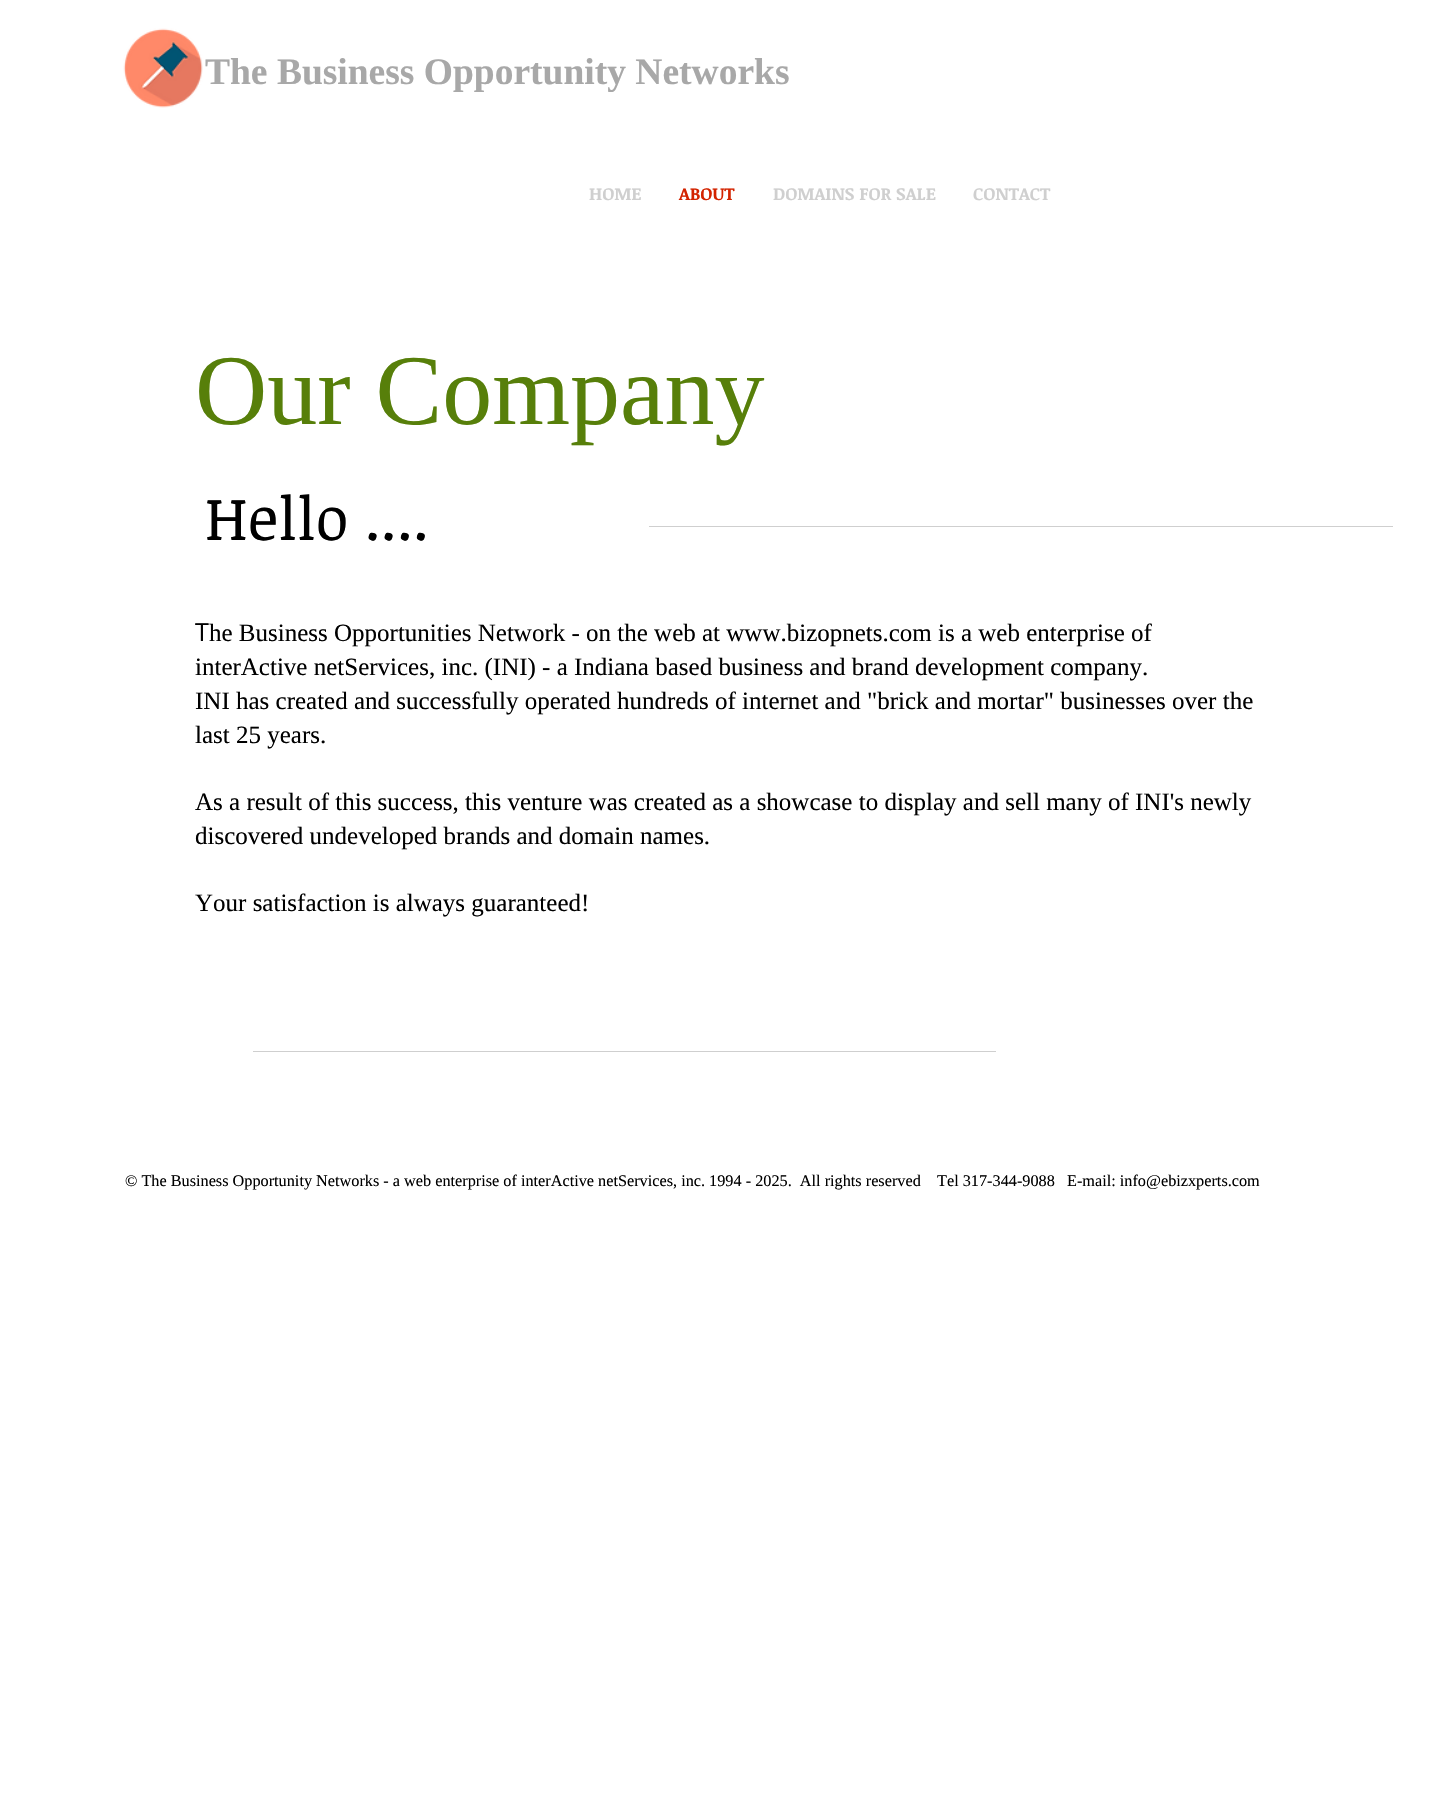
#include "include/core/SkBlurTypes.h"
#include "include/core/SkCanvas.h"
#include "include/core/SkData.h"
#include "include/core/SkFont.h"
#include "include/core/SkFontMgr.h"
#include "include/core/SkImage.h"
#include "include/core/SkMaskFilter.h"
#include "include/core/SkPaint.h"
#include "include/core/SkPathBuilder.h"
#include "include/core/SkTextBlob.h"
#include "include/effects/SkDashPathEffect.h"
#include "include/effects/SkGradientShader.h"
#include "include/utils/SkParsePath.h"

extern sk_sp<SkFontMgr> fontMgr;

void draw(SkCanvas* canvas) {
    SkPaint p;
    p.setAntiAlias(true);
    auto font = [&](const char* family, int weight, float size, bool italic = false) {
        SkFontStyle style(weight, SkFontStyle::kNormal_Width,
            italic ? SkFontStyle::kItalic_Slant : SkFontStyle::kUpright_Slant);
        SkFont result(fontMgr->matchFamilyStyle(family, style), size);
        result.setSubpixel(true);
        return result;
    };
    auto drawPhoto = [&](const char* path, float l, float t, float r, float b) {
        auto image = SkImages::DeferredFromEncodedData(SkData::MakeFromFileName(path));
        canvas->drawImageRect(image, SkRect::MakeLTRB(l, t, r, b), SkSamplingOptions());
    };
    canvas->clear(0xFFFFFFFF);
    drawPhoto("media/1.png", 123, 28, 203, 108);
    auto font1 = font("Liberation Serif", 700, 37.5f);
    p.setColor(0xFFA8A8A8);
    canvas->drawString("The Business Opportunity Networks", 205, 84, font1, p);
    auto font2 = font("Noticia Text", 700, 17.5f);
    p.setColor(0xFFCFCFCF);
    canvas->drawString("HOME", 589, 200, font2, p);
    p.setColor(0xFFD32300);
    canvas->drawString("ABOUT", 679, 200, font2, p);
    p.setColor(0xFFCFCFCF);
    canvas->drawString("DOMAINS FOR SALE", 773, 200, font2, p);
    canvas->drawString("CONTACT", 973, 200, font2, p);
    auto font3 = font("Liberation Serif", 400, 100);
    p.setColor(0xFF577F0A);
    canvas->drawString("Our Company", 195, 424, font3, p);
    auto font4 = font("Noticia Text", 400, 60);
    p.setColor(0xFF000000);
    canvas->drawString("Hello ....", 205, 540, font4, p);
    p.setColor(0xFFCFCFCF);
    canvas->drawRect(SkRect::MakeLTRB(649, 526, 1393, 527), p);
    auto font5 = font("Open Sans", 400, 25);
    p.setColor(0xFF000000);
    canvas->drawString("T", 195, 641, font5, p);
    auto font6 = font("Liberation Serif", 400, 25);
    {
        const struct { const char* s; float x, y; } items[] = {
            {"he Business Opportunities Network - on the web at www.bizopnets.com is a web enterprise of", 209, 641},
            {"interActive netServices, inc. (INI) - a Indiana based business and brand development company.", 195, 675},
            {"INI has created and successfully operated hundreds of internet and \"brick and mortar\" businesses over the", 195, 709},
            {"last 25 years.", 195, 743},
            {"As a result of this success, this venture was created as a showcase to display and sell many of INI's newly", 195, 810},
            {"discovered undeveloped brands and domain names.", 195, 844},
            {"Your satisfaction is always guaranteed!", 195, 911},
        };
        for (auto [s, x, y] : items) {
            canvas->drawString(s, x, y, font6, p);
        }
    }
    p.setColor(0xFFCFCFCF);
    canvas->drawRect(SkRect::MakeLTRB(253, 1051, 996, 1052), p);
    auto font7 = font("Liberation Serif", 400, 16.25f);
    p.setColor(0xFF000000);
    canvas->drawString("© The Business Opportunity Networks - a web enterprise of interActive netServices, inc. 1994 - 2025.  All rights reserved    Tel 317-344-9088   E-mail: info@ebizxperts.com", 125, 1186, font7, p);
}
